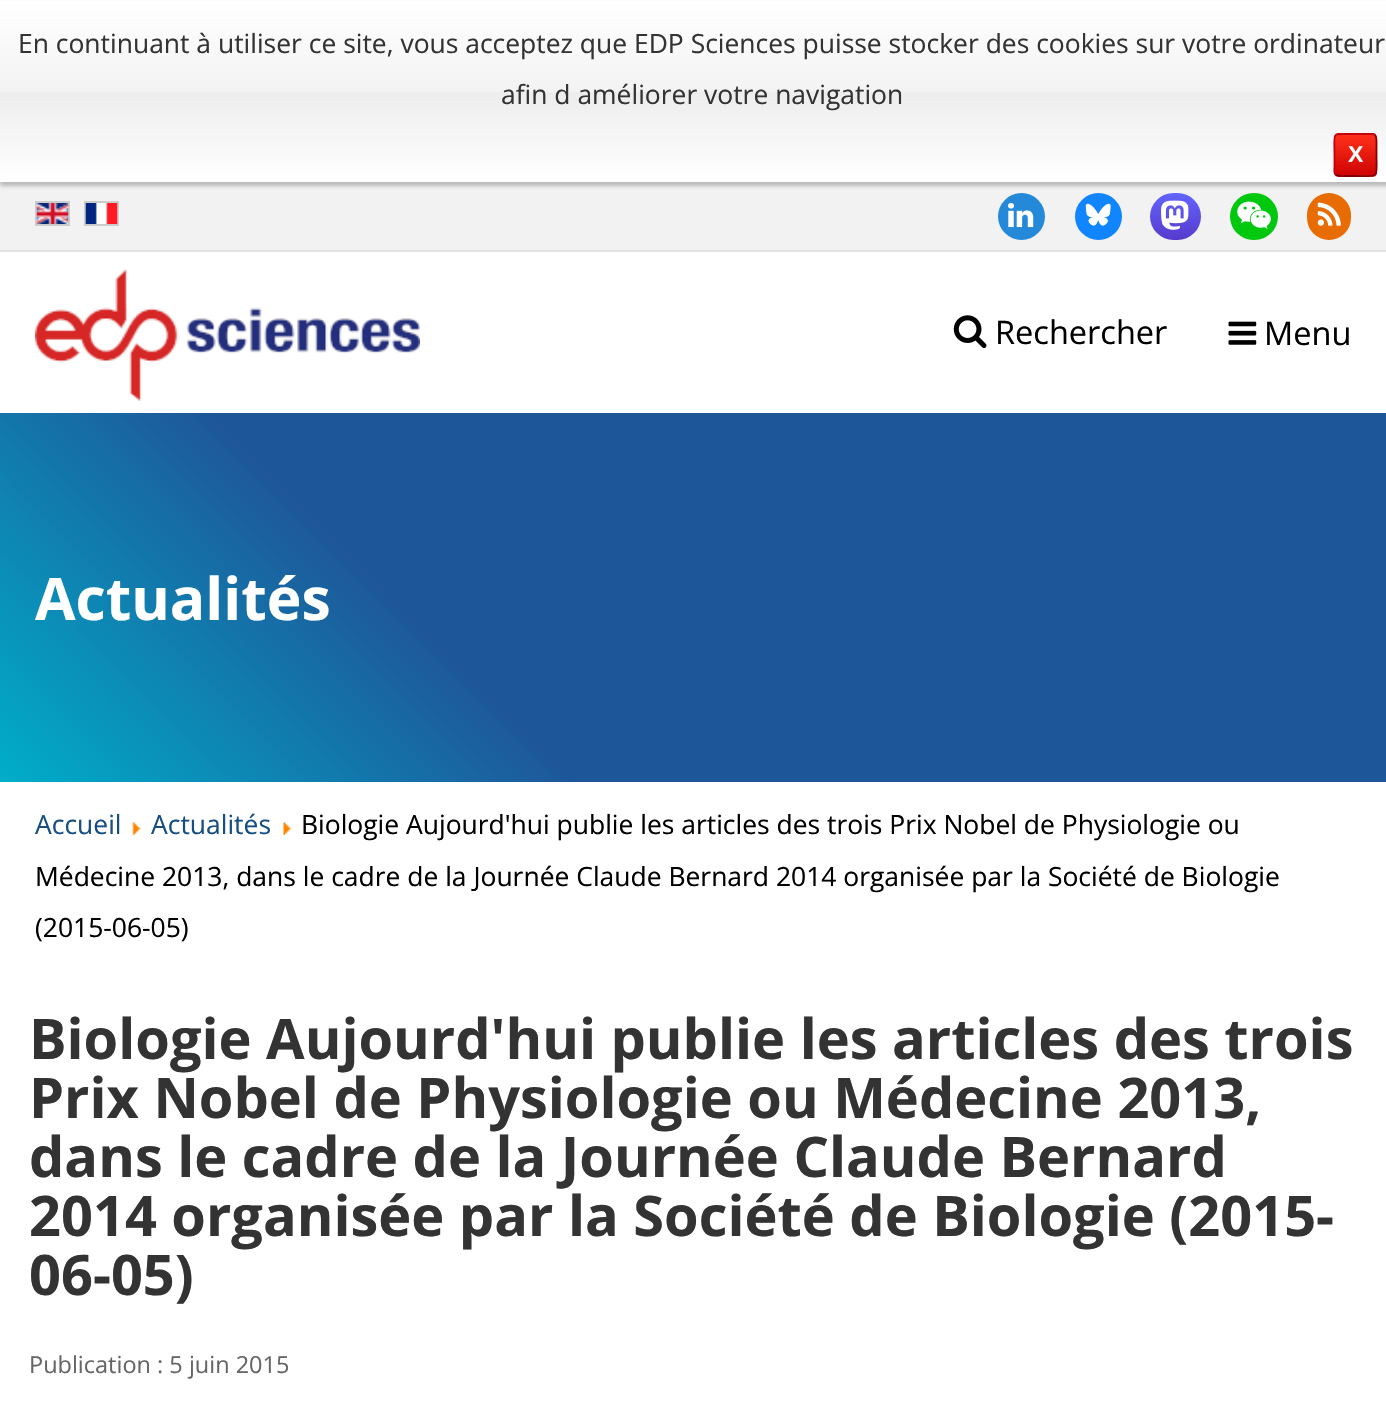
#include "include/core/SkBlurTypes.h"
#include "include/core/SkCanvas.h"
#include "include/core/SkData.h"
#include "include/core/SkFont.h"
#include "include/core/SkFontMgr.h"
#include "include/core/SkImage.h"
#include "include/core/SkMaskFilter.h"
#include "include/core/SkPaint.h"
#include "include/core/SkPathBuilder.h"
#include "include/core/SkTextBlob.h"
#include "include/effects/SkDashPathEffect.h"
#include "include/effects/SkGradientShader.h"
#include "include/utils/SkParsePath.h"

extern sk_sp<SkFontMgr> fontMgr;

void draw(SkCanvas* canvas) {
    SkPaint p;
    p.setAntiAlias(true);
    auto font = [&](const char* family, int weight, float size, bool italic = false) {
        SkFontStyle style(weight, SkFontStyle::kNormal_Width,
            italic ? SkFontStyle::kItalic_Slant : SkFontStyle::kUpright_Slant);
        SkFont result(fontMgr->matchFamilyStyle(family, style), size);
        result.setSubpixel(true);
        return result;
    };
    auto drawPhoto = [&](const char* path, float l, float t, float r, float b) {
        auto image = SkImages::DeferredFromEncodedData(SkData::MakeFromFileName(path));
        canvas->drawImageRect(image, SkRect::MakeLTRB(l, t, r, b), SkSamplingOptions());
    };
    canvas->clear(0xFFFFFFFF);
    p.setColor(0xFFF2F2F2);
    canvas->drawRect(SkRect::MakeLTRB(0, 182, 1386, 250), p);
    p.setColor(0x807F7F7F);
    p.setMaskFilter(SkMaskFilter::MakeBlur(kNormal_SkBlurStyle, 2));
    canvas->drawRect(SkRect::MakeLTRB(0, 4, 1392, 186), p);
    p.setMaskFilter(nullptr);
    {
        const SkColor colors[] = {0xFFFFFFFF, 0xFFF3F3F3, 0xFFEDEDED, 0xFFFFFFFF};
        const float stops[] = {0, 0.5f, 0.51f, 1};
        const SkPoint ends[] = {{702, 0}, {702, 182}};
        p.setShader(SkGradientShader::MakeLinear(ends, colors, stops, 4, SkTileMode::kClamp));
        p.setAlpha(255);
    }
    canvas->drawRect(SkRect::MakeLTRB(0, 1, 1386, 182), p);
    auto font1 = font("Open Sans", 400, 26.45f);
    p.setShader(nullptr);
    p.setColor(0xFF333333);
    canvas->drawString("En continuant à utiliser ce site, vous acceptez que EDP Sciences puisse stocker des cookies sur votre ordinateur", 18, 53, font1, p);
    canvas->drawString("afin d améliorer votre navigation", 501, 104, font1, p);
    canvas->save();
    canvas->clipPath(SkPathBuilder().moveTo(1339, 133).lineTo(1372, 133).cubicTo(1375, 133, 1377, 135, 1377, 138).lineTo(1377, 172).cubicTo(1377, 175, 1375, 177, 1372, 177).lineTo(1339, 177).cubicTo(1336, 177, 1334, 175, 1334, 172).lineTo(1334, 138).cubicTo(1334, 135, 1336, 133, 1339, 133).close().detach(), true);
    {
        const SkColor colors[] = {0xFFFF3019, 0xFFCF0404};
        const float stops[] = {0, 1};
        const SkPoint ends[] = {{1355, 95}, {1355, 135}};
        p.setShader(SkGradientShader::MakeLinear(ends, colors, stops, 2, SkTileMode::kClamp));
        p.setAlpha(255);
    }
    canvas->drawRect(SkRect::MakeLTRB(1334, 133, 1377, 135), p);
    {
        const SkColor colors[] = {0xFFFF3019, 0xFFCF0404};
        const float stops[] = {0, 1};
        const SkPoint ends[] = {{1355, 135}, {1355, 175}};
        p.setShader(SkGradientShader::MakeLinear(ends, colors, stops, 2, SkTileMode::kClamp));
        p.setAlpha(255);
    }
    canvas->drawRect(SkRect::MakeLTRB(1334, 135, 1377, 175), p);
    {
        const SkColor colors[] = {0xFFFF3019, 0xFFCF0404};
        const float stops[] = {0, 1};
        const SkPoint ends[] = {{1355, 175}, {1355, 215}};
        p.setShader(SkGradientShader::MakeLinear(ends, colors, stops, 2, SkTileMode::kClamp));
        p.setAlpha(255);
    }
    canvas->drawRect(SkRect::MakeLTRB(1334, 175, 1377, 177), p);
    canvas->restore();
    p.setStyle(SkPaint::kStroke_Style);
    p.setStrokeWidth(1.8f);
    p.setShader(nullptr);
    p.setColor(0xFF830006);
    canvas->drawPath(SkPathBuilder().moveTo(1375, 135).cubicTo(1377, 137.5f, 1376.5f, 141.5f, 1376.5f, 144).lineTo(1376.5f, 155).cubicTo(1376.5f, 179.5f, 1380, 176, 1355.5f, 176).lineTo(1344.5f, 176).cubicTo(1342, 176, 1338, 176.5f, 1335.5f, 174.5f).detach(), p);
    p.setColor(0xFFC40009);
    canvas->drawPath(SkPathBuilder().moveTo(1335.5f, 174.5f).cubicTo(1333.5f, 172.5f, 1334.5f, 168.5f, 1334.5f, 166).lineTo(1334.5f, 155).cubicTo(1334.5f, 130, 1330.5f, 134, 1355.5f, 134).lineTo(1366.5f, 134).cubicTo(1369, 134, 1373, 133, 1375, 135).detach(), p);
    auto font2 = font("Liberation Sans", 700, 23);
    p.setStyle(SkPaint::kFill_Style);
    p.setColor(0xFFFFFFFF);
    canvas->drawString("X", 1348, 162, font2, p);
    p.setColor(0xFFE2E2E2);
    canvas->drawRect(SkRect::MakeLTRB(0, 250, 1386, 252), p);
    p.setStyle(SkPaint::kStroke_Style);
    p.setStrokeWidth(2);
    p.setColor(0xFFCCCCCC);
    canvas->drawRect(SkRect::MakeLTRB(36, 202, 69, 225), p);
    drawPhoto("media/1.png", 36, 203, 69, 224);
    canvas->drawRect(SkRect::MakeLTRB(85, 202, 118, 225), p);
    drawPhoto("media/2.png", 85, 203, 118, 224);
    p.setStyle(SkPaint::kFill_Style);
    p.setColor(0xFF2489D9);
    canvas->drawCircle(1021.5f, 216.5f, 23.5f, p);
    drawPhoto("media/3.png", 1008, 203, 1034, 228);
    p.setColor(0xFF1185FE);
    canvas->drawCircle(1098.5f, 216.5f, 23.5f, p);
    drawPhoto("media/4.png", 1085, 203, 1111, 226);
    {
        const SkColor colors[] = {0xFF6364FF, 0xFF563ACC};
        const float stops[] = {0, 1};
        const SkPoint ends[] = {{1175, 193}, {1175, 240}};
        p.setShader(SkGradientShader::MakeLinear(ends, colors, stops, 2, SkTileMode::kClamp));
        p.setAlpha(255);
    }
    canvas->drawRoundRect(SkRect::MakeLTRB(1150, 193, 1201, 240), 23.5f, 23.5f, p);
    drawPhoto("media/5.png", 1161, 200, 1189, 230);
    p.setShader(nullptr);
    p.setColor(0xFF00C80F);
    canvas->drawRoundRect(SkRect::MakeLTRB(1230, 193, 1278, 240), 23.5f, 23.5f, p);
    drawPhoto("media/6.png", 1237, 201, 1271, 229);
    p.setColor(0xFFE76C04);
    canvas->drawRoundRect(SkRect::MakeLTRB(1307, 193, 1351, 240), 22, 22, p);
    drawPhoto("media/7.png", 1317, 202, 1341, 226);
    drawPhoto("media/8.png", 35, 269, 420, 401);
    drawPhoto("media/9.png", 953, 315, 987, 348);
    auto font3 = font("Open Sans", 400, 32.5f);
    p.setColor(0xFF000000);
    canvas->drawString("Rechercher", 995, 344, font3, p);
    drawPhoto("media/10.png", 1228, 321, 1257, 345);
    canvas->drawString("Menu", 1264, 345, font3, p);
    {
        const SkColor colors[] = {0xFF00AEC9, 0xFF1E5799};
        const float stops[] = {0, 0.33f};
        const SkPoint ends[] = {{254, 1036}, {1132, 159}};
        p.setShader(SkGradientShader::MakeLinear(ends, colors, stops, 2, SkTileMode::kClamp));
        p.setAlpha(255);
    }
    canvas->drawRect(SkRect::MakeLTRB(0, 413, 1386, 782), p);
    auto font4 = font("Open Sans", 700, 58.75f);
    p.setShader(nullptr);
    p.setColor(0xFFFFFFFF);
    canvas->drawString("Actualités", 35, 620, font4, p);
    p.setColor(0xFF174F82);
    canvas->drawString("Accueil", 35, 834, font1, p);
    drawPhoto("media/11.png", 132, 822, 141, 835);
    canvas->drawString("Actualités", 151, 834, font1, p);
    drawPhoto("media/12.png", 283, 822, 291, 835);
    p.setColor(0xFF000000);
    {
        const struct { const char* s; float x, y; } items[] = {
            {"Biologie Aujourd'hui publie les articles des trois Prix Nobel de Physiologie ou", 301, 834},
            {"Médecine 2013, dans le cadre de la Journée Claude Bernard 2014 organisée par la Société de Biologie", 35, 886},
            {"(2015-06-05)", 35, 937},
        };
        for (auto [s, x, y] : items) {
            canvas->drawString(s, x, y, font1, p);
        }
    }
    auto font5 = font("Open Sans", 700, 55.9f);
    p.setColor(0xFF333333);
    {
        const struct { const char* s; float x, y; } items[] = {
            {"Biologie Aujourd'hui publie les articles des trois", 29, 1059},
            {"Prix Nobel de Physiologie ou Médecine 2013,", 29, 1118},
            {"dans le cadre de la Journée Claude Bernard", 29, 1177},
            {"2014 organisée par la Société de Biologie (2015-", 29, 1236},
            {"06-05)", 29, 1295},
        };
        for (auto [s, x, y] : items) {
            canvas->drawString(s, x, y, font5, p);
        }
    }
    auto font6 = font("Open Sans", 400, 23.5f);
    p.setColor(0xFF666666);
    canvas->drawString("Publication : 5 juin 2015", 29, 1373, font6, p);
}
